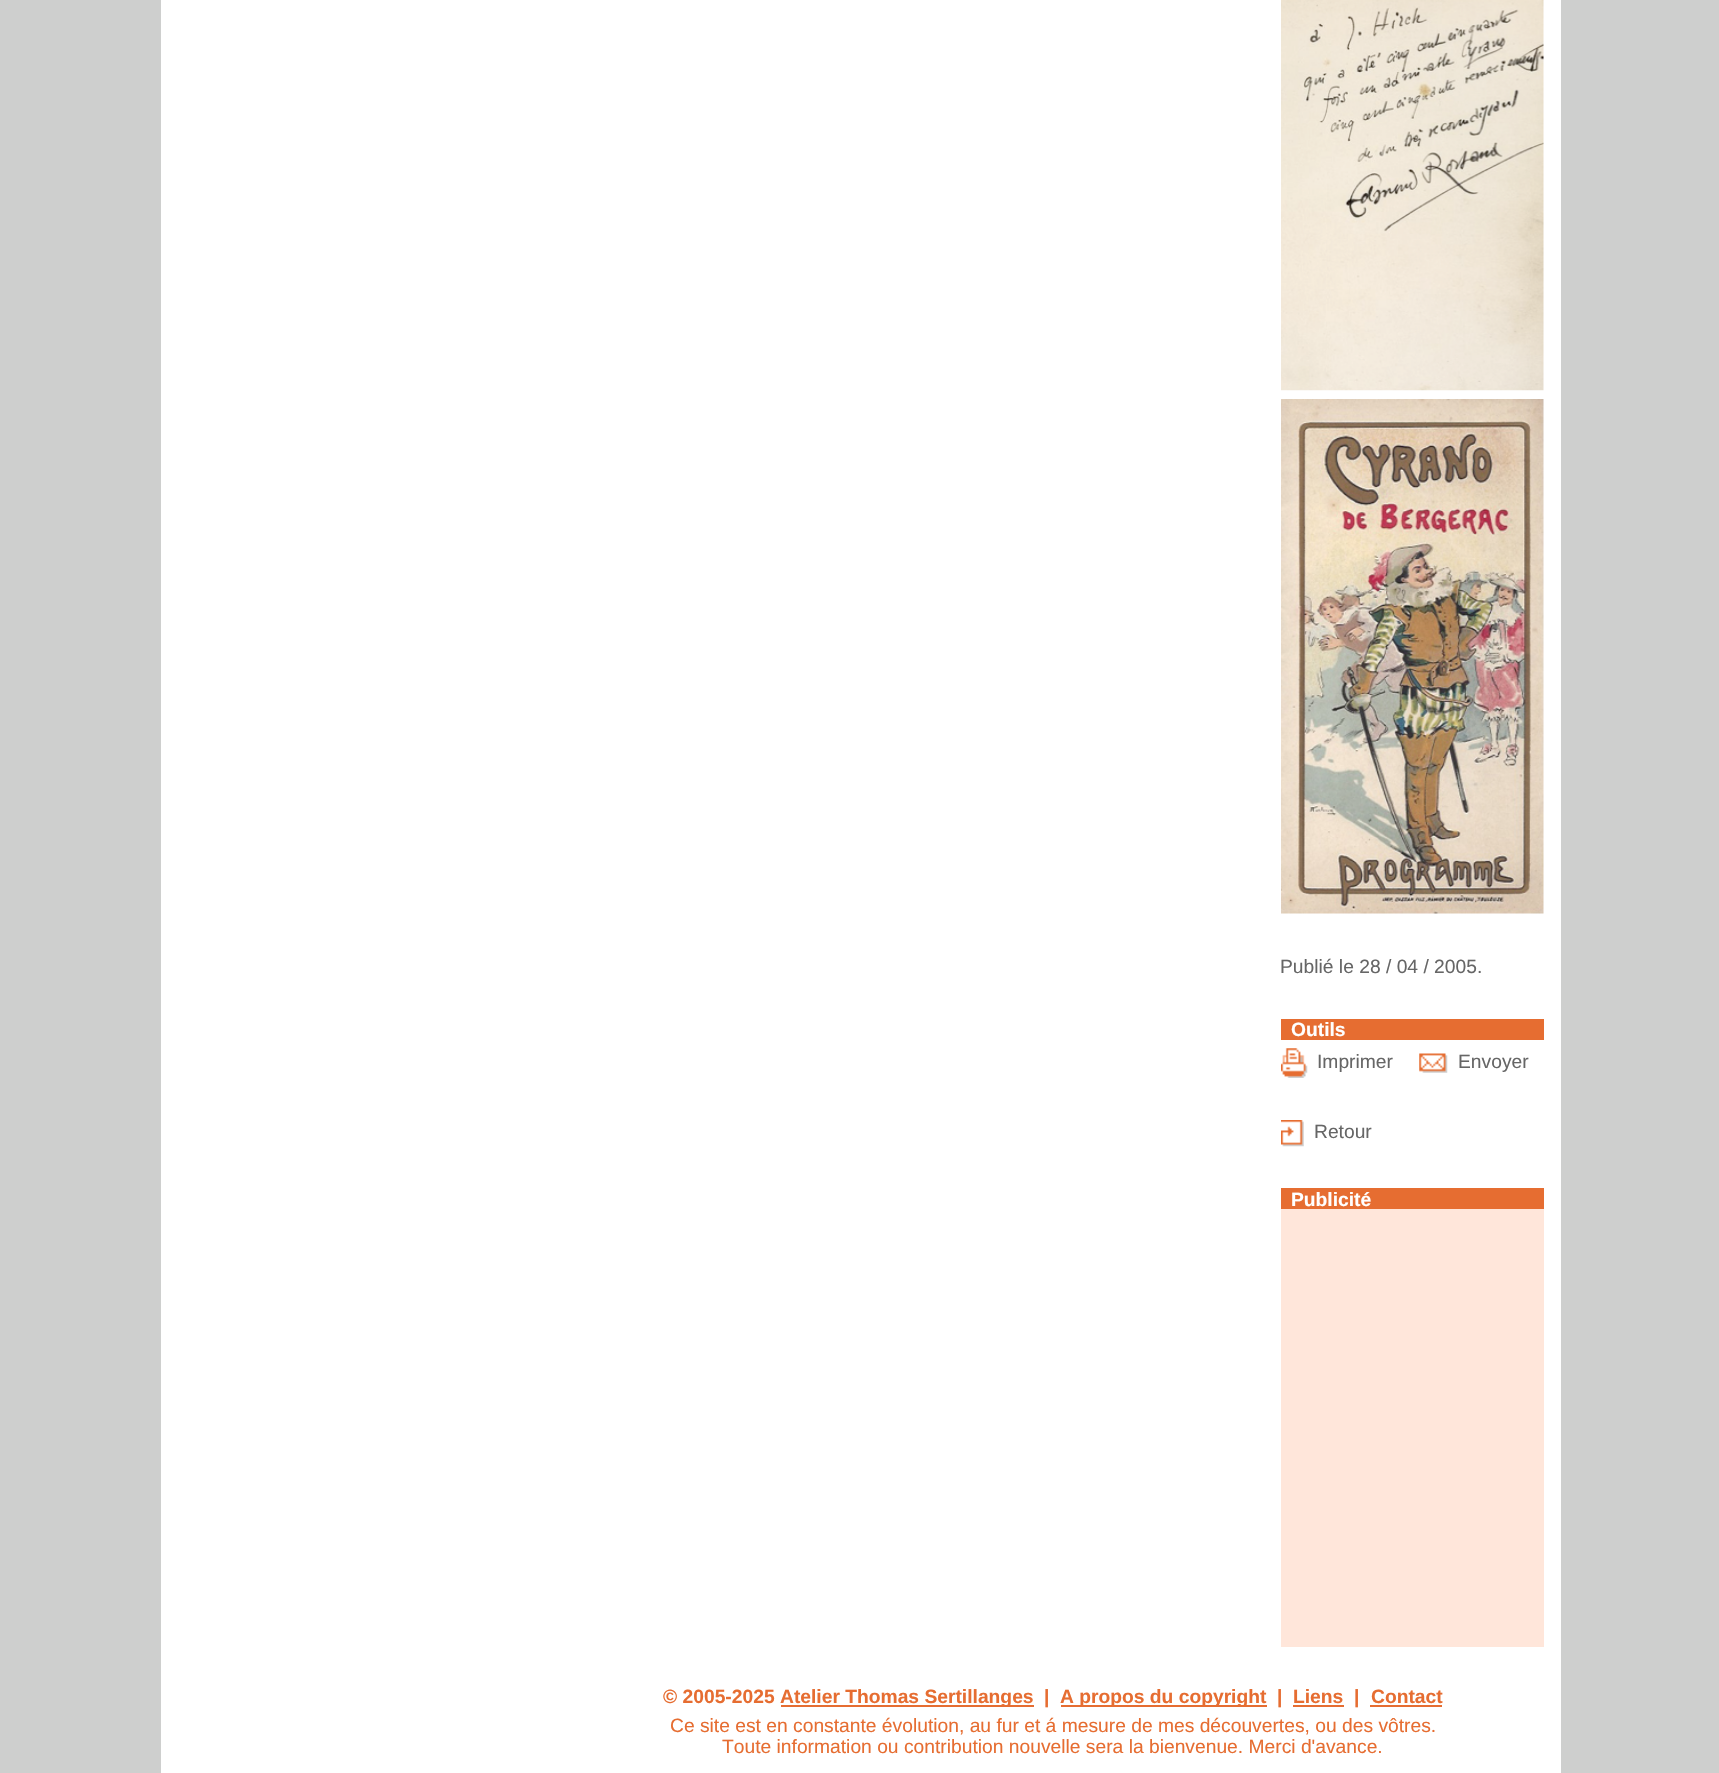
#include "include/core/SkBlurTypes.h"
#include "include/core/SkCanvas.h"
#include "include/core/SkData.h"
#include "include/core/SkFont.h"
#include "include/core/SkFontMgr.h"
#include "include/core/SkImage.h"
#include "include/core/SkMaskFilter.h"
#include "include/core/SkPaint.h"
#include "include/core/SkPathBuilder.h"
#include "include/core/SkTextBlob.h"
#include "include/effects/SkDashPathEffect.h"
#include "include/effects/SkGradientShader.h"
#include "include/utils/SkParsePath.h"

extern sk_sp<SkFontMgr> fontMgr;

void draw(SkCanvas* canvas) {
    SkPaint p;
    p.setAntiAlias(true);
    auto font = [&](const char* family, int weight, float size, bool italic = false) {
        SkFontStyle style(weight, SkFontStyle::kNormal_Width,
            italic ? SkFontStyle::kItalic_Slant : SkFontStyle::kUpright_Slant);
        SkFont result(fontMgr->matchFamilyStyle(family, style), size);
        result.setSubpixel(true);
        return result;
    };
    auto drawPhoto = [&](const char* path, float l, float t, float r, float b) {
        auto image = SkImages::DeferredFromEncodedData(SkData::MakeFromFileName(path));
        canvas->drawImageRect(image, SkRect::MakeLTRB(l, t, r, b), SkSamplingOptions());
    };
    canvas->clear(0xFFCECFCE);
    p.setColor(0xFFFFFFFF);
    canvas->drawRect(SkRect::MakeLTRB(161, 0, 1561, 1773), p);
    drawPhoto("media/1.png", 1281, 0, 1544, 391);
    drawPhoto("media/2.png", 1281, 399, 1544, 914);
    auto font1 = font("Liberation Sans", 400, 19.25f);
    p.setColor(0xFF666666);
    canvas->drawString("Publié le 28 / 04 / 2005.", 1280, 973, font1, p);
    p.setColor(0xFFE66D31);
    canvas->drawRect(SkRect::MakeLTRB(1281, 1019, 1544, 1040), p);
    auto font2 = font("Liberation Sans", 700, 19.25f);
    p.setColor(0xFFFFFFFF);
    canvas->drawString("Outils", 1291, 1036, font2, p);
    drawPhoto("media/3.png", 1281, 1048, 1308, 1078);
    p.setColor(0xFF666666);
    canvas->drawString("Imprimer", 1317, 1068, font1, p);
    drawPhoto("media/4.png", 1419, 1053, 1448, 1073);
    canvas->drawString("Envoyer", 1458, 1068, font1, p);
    drawPhoto("media/5.png", 1281, 1120, 1304, 1147);
    canvas->drawString("Retour", 1314, 1138, font1, p);
    p.setColor(0xFFE66D31);
    canvas->drawRect(SkRect::MakeLTRB(1281, 1188, 1544, 1209), p);
    p.setColor(0xFFFFFFFF);
    canvas->drawString("Publicité", 1291, 1206, font2, p);
    p.setColor(0xFFFFE6DA);
    canvas->drawRect(SkRect::MakeLTRB(1281, 1209, 1544, 1647), p);
    p.setColor(0xFFE66D31);
    canvas->drawString("© 2005-2025", 663, 1703, font2, p);
    canvas->drawRect(SkRect::MakeLTRB(781, 1705, 1034, 1707), p);
    canvas->drawString("Atelier Thomas Sertillanges", 780, 1703, font2, p);
    canvas->drawString("|", 1044, 1703, font2, p);
    canvas->drawRect(SkRect::MakeLTRB(1061, 1705, 1267, 1707), p);
    {
        const struct { const char* s; float x, y; } items[] = {
            {"A propos du copyright", 1060, 1703},
            {"|", 1277, 1703},
            {"Liens", 1293, 1703},
        };
        for (auto [s, x, y] : items) {
            canvas->drawString(s, x, y, font2, p);
        }
    }
    canvas->drawRect(SkRect::MakeLTRB(1293, 1705, 1344, 1707), p);
    canvas->drawString("|", 1354, 1703, font2, p);
    canvas->drawString("Contact", 1371, 1703, font2, p);
    canvas->drawRect(SkRect::MakeLTRB(1370, 1705, 1442, 1707), p);
    canvas->drawString("Ce site est en constante évolution, au fur et á mesure de mes découvertes, ou des vôtres.", 670, 1732, font1, p);
    canvas->drawString("Toute information ou contribution nouvelle sera la bienvenue. Merci d'avance.", 722, 1753, font1, p);
}
